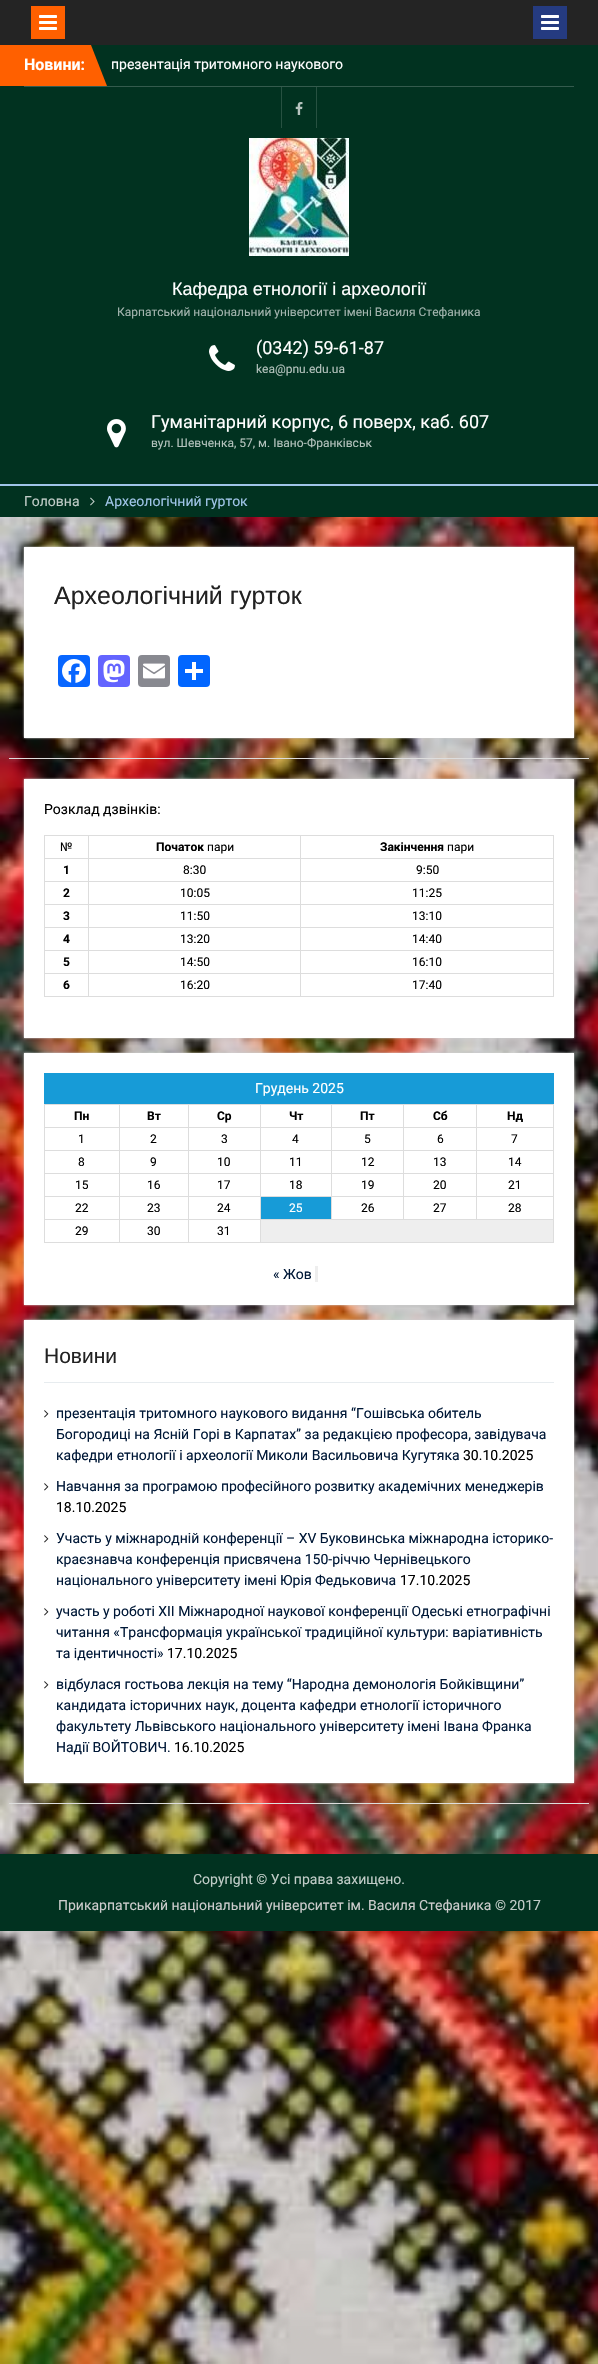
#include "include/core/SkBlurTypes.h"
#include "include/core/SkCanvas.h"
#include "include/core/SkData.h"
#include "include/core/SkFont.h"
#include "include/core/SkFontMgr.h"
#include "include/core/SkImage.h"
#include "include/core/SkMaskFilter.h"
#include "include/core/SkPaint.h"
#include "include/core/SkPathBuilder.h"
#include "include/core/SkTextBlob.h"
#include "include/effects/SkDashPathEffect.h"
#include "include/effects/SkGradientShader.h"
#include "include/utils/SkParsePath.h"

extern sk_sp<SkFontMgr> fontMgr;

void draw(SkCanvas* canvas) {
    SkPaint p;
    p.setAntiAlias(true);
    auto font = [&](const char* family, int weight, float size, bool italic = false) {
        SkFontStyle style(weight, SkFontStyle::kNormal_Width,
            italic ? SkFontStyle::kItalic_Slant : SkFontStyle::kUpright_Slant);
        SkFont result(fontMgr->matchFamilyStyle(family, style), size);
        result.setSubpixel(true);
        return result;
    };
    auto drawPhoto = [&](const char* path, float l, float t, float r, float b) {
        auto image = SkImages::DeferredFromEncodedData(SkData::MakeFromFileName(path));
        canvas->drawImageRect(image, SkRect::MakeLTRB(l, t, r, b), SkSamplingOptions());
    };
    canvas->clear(0xFFFFFFFF);
    drawPhoto("media/1.png", 0, 517, 598, 2364);
    p.setColor(0xFF242424);
    canvas->drawRect(SkRect::MakeLTRB(0, 0, 598, 45), p);
    p.setColor(0xFFFF6000);
    canvas->drawRect(SkRect::MakeLTRB(31, 6, 65, 39), p);
    drawPhoto("media/2.png", 39, 15, 57, 30);
    p.setColor(0xFF253B80);
    canvas->drawRect(SkRect::MakeLTRB(533, 6, 567, 39), p);
    drawPhoto("media/3.png", 541, 15, 559, 30);
    p.setColor(0xFF013220);
    canvas->drawRect(SkRect::MakeLTRB(0, 45, 598, 484), p);
    p.setColor(0xFFFF6000);
    canvas->drawRect(SkRect::MakeLTRB(0, 45, 91, 86), p);
    auto font1 = font("Roboto", 700, 16);
    p.setColor(0xFFFFFFFF);
    canvas->drawString("Новини:", 24, 70, font1, p);
    p.setColor(0xFFFF6000);
    canvas->drawPath(SkPathBuilder().moveTo(91, 86).lineTo(91, 45).lineTo(107, 86).close().detach(), p);
    auto font2 = font("Roboto", 400, 14);
    p.setColor(0xFFFFFFFF);
    canvas->drawString("презентація тритомного наукового", 111, 69, font2, p);
    {
        const struct { float l, t, r, b; SkColor color; } items[] = {
            {24, 86, 574, 87, 0xFF345B4D},
            {316, 87, 317, 128, 0xFF275141},
            {281, 87, 282, 128, 0xFF275141},
        };
        for (auto [l, t, r, b, color] : items) {
            p.setColor(color);
            canvas->drawRect(SkRect::MakeLTRB(l, t, r, b), p);
        }
    }
    drawPhoto("media/4.png", 295, 102, 303, 115);
    drawPhoto("media/5.png", 249, 138, 349, 256);
    auto font3 = font("Liberation Sans", 400, 18);
    p.setColor(0xFFFFFFFF);
    canvas->drawString("Кафедра етнології і археології", 172, 295, font3, p);
    auto font4 = font("Roboto", 400, 12);
    p.setColor(0xFFA4B5AF);
    canvas->drawString("Карпатський національний університет імені Василя Стефаника", 117, 316, font4, p);
    drawPhoto("media/6.png", 209, 345, 235, 371);
    auto font5 = font("Roboto", 400, 18);
    p.setColor(0xFFFFFFFF);
    canvas->drawString("(0342) 59-61-87", 256, 354, font5, p);
    p.setColor(0xFFB3C2BC);
    canvas->drawString("kea@pnu.edu.ua", 256, 373, font4, p);
    drawPhoto("media/7.png", 107, 419, 126, 448);
    p.setColor(0xFFFFFFFF);
    canvas->drawString("Гуманітарний корпус, 6 поверх, каб. 607", 151, 428, font5, p);
    p.setColor(0xFFB3C2BC);
    canvas->drawString("вул. Шевченка, 57, м. Івано-Франківськ", 151, 447, font4, p);
    p.setColor(0xFF013220);
    canvas->drawRect(SkRect::MakeLTRB(0, 486, 598, 517), p);
    p.setColor(0xFFA0C5E8);
    canvas->drawRect(SkRect::MakeLTRB(0, 484, 598, 486), p);
    p.setColor(0xFFC0CCC7);
    canvas->drawString("Головна", 24, 506, font2, p);
    drawPhoto("media/8.png", 90, 497, 95, 506);
    p.setColor(0xFFA0C5E8);
    canvas->drawString("Археологічний гурток", 105, 506, font2, p);
    p.setColor(0xFFDDDDDD);
    canvas->drawRect(SkRect::MakeLTRB(9, 758, 589, 759), p);
    p.setColor(0xFFCFCFCF);
    p.setMaskFilter(SkMaskFilter::MakeBlur(kNormal_SkBlurStyle, 1));
    canvas->drawRect(SkRect::MakeLTRB(24, 547, 574, 738), p);
    p.setMaskFilter(nullptr);
    p.setColor(0xFFFFFFFF);
    canvas->drawRect(SkRect::MakeLTRB(24, 547, 574, 738), p);
    auto font6 = font("Liberation Sans", 400, 25);
    p.setColor(0xFF222222);
    canvas->drawString("Археологічний гурток", 54, 604, font6, p);
    p.setColor(0xFF0866FF);
    canvas->drawRoundRect(SkRect::MakeLTRB(58, 655, 90, 687), 4, 4, p);
    drawPhoto("media/9.png", 62, 659, 86, 683);
    p.setColor(0xFF6364FF);
    canvas->drawRoundRect(SkRect::MakeLTRB(98, 655, 130, 687), 4, 4, p);
    drawPhoto("media/10.png", 103, 659, 125, 683);
    p.setColor(0xFF888990);
    canvas->drawRoundRect(SkRect::MakeLTRB(138, 655, 170, 687), 4, 4, p);
    drawPhoto("media/11.png", 143, 663, 165, 679);
    p.setColor(0xFF0166FF);
    canvas->drawRoundRect(SkRect::MakeLTRB(178, 655, 210, 687), 4, 4, p);
    {
        const struct { float l, t, r, b; SkColor color; } items[] = {
            {192, 662, 196, 680, 0xFFFFFFFF},
            {185, 669, 203, 673, 0xFFFFFFFF},
            {9, 1803, 589, 1804, 0xFFDDDDDD},
        };
        for (auto [l, t, r, b, color] : items) {
            p.setColor(color);
            canvas->drawRect(SkRect::MakeLTRB(l, t, r, b), p);
        }
    }
    p.setColor(0xFFCFCFCF);
    p.setMaskFilter(SkMaskFilter::MakeBlur(kNormal_SkBlurStyle, 1));
    canvas->drawRect(SkRect::MakeLTRB(24, 779, 574, 1038), p);
    p.setMaskFilter(nullptr);
    p.setColor(0xFFFFFFFF);
    canvas->drawRect(SkRect::MakeLTRB(24, 779, 574, 1038), p);
    p.setColor(0xFF000000);
    canvas->drawString("Розклад дзвінків:", 44, 814, font2, p);
    {
        const struct { float l, t, r, b; SkColor color; } items[] = {
            {300, 835, 554, 836, 0xFFDDDDDD},
            {300, 858, 554, 859, 0xFFDDDDDD},
            {300, 881, 554, 882, 0xFFDDDDDD},
            {300, 904, 554, 905, 0xFFDDDDDD},
            {300, 927, 554, 928, 0xFFDDDDDD},
            {300, 950, 554, 951, 0xFFDDDDDD},
            {300, 973, 554, 974, 0xFFDDDDDD},
            {553, 973, 554, 997, 0xFFDDDDDD},
            {300, 996, 554, 997, 0xFFDDDDDD},
            {300, 973, 301, 997, 0xFFDDDDDD},
            {88, 973, 301, 974, 0xFFDDDDDD},
            {300, 950, 301, 974, 0xFFDDDDDD},
            {88, 950, 301, 951, 0xFFDDDDDD},
            {300, 927, 301, 951, 0xFFDDDDDD},
            {88, 927, 301, 928, 0xFFDDDDDD},
            {300, 904, 301, 928, 0xFFDDDDDD},
            {88, 904, 301, 905, 0xFFDDDDDD},
            {300, 881, 301, 905, 0xFFDDDDDD},
            {88, 881, 301, 882, 0xFFDDDDDD},
            {300, 858, 301, 882, 0xFFDDDDDD},
            {88, 858, 301, 859, 0xFFDDDDDD},
            {300, 835, 301, 859, 0xFFDDDDDD},
            {88, 835, 301, 836, 0xFFDDDDDD},
            {88, 996, 301, 997, 0xFFDDDDDD},
            {88, 973, 89, 997, 0xFFDDDDDD},
            {44, 973, 89, 974, 0xFFDDDDDD},
            {88, 950, 89, 974, 0xFFDDDDDD},
            {44, 950, 89, 951, 0xFFDDDDDD},
            {88, 927, 89, 951, 0xFFDDDDDD},
            {44, 927, 89, 928, 0xFFDDDDDD},
            {88, 904, 89, 928, 0xFFDDDDDD},
            {44, 904, 89, 905, 0xFFDDDDDD},
            {88, 881, 89, 905, 0xFFDDDDDD},
            {44, 881, 89, 882, 0xFFDDDDDD},
            {88, 858, 89, 882, 0xFFDDDDDD},
            {44, 858, 89, 859, 0xFFDDDDDD},
            {88, 835, 89, 859, 0xFFDDDDDD},
            {44, 835, 89, 836, 0xFFDDDDDD},
            {44, 996, 89, 997, 0xFFDDDDDD},
            {44, 973, 45, 997, 0xFFDDDDDD},
            {44, 950, 45, 974, 0xFFDDDDDD},
            {44, 927, 45, 951, 0xFFDDDDDD},
            {44, 904, 45, 928, 0xFFDDDDDD},
            {44, 881, 45, 905, 0xFFDDDDDD},
            {44, 858, 45, 882, 0xFFDDDDDD},
            {44, 835, 45, 859, 0xFFDDDDDD},
        };
        for (auto [l, t, r, b, color] : items) {
            p.setColor(color);
            canvas->drawRect(SkRect::MakeLTRB(l, t, r, b), p);
        }
    }
    p.setColor(0xFF000000);
    canvas->drawString("№", 60, 851, font4, p);
    auto font7 = font("Roboto", 700, 12);
    canvas->drawString("Початок", 156, 851, font7, p);
    canvas->drawString("пари", 207, 851, font4, p);
    {
        const struct { float l, t, r, b; SkColor color; } items[] = {
            {553, 950, 554, 974, 0xFFDDDDDD},
            {553, 927, 554, 951, 0xFFDDDDDD},
            {553, 904, 554, 928, 0xFFDDDDDD},
            {553, 881, 554, 905, 0xFFDDDDDD},
            {553, 858, 554, 882, 0xFFDDDDDD},
            {553, 835, 554, 859, 0xFFDDDDDD},
        };
        for (auto [l, t, r, b, color] : items) {
            p.setColor(color);
            canvas->drawRect(SkRect::MakeLTRB(l, t, r, b), p);
        }
    }
    p.setColor(0xFF000000);
    canvas->drawString("Закінчення", 380, 851, font7, p);
    canvas->drawString("пари", 447, 851, font4, p);
    canvas->drawString("1", 63, 874, font7, p);
    canvas->drawString("8:30", 183, 874, font4, p);
    canvas->drawString("9:50", 416, 874, font4, p);
    canvas->drawString("2", 63, 897, font7, p);
    canvas->drawString("10:05", 180, 897, font4, p);
    canvas->drawString("11:25", 412, 897, font4, p);
    canvas->drawString("3", 63, 920, font7, p);
    canvas->drawString("11:50", 180, 920, font4, p);
    canvas->drawString("13:10", 412, 920, font4, p);
    canvas->drawString("4", 63, 943, font7, p);
    canvas->drawString("13:20", 180, 943, font4, p);
    canvas->drawString("14:40", 412, 943, font4, p);
    canvas->drawString("5", 63, 966, font7, p);
    canvas->drawString("14:50", 180, 966, font4, p);
    canvas->drawString("16:10", 412, 966, font4, p);
    canvas->drawString("6", 63, 989, font7, p);
    canvas->drawString("16:20", 180, 989, font4, p);
    canvas->drawString("17:40", 412, 989, font4, p);
    p.setColor(0xFFCFCFCF);
    p.setMaskFilter(SkMaskFilter::MakeBlur(kNormal_SkBlurStyle, 1));
    canvas->drawRect(SkRect::MakeLTRB(24, 1053, 574, 1305), p);
    p.setMaskFilter(nullptr);
    p.setColor(0xFFFFFFFF);
    canvas->drawRect(SkRect::MakeLTRB(24, 1053, 574, 1305), p);
    p.setColor(0xFF179BD7);
    canvas->drawRect(SkRect::MakeLTRB(44, 1073, 554, 1104), p);
    p.setColor(0xFFFFFFFF);
    canvas->drawString("Грудень 2025", 255, 1093, font2, p);
    {
        const struct { float l, t, r, b; SkColor color; } items[] = {
            {476, 1104, 554, 1105, 0xFFDDDDDD},
            {476, 1127, 554, 1128, 0xFFDDDDDD},
            {476, 1150, 554, 1151, 0xFFDDDDDD},
            {476, 1173, 554, 1174, 0xFFDDDDDD},
            {476, 1196, 554, 1197, 0xFFDDDDDD},
            {260, 1219, 554, 1220, 0xFFDDDDDD},
            {476, 1196, 477, 1220, 0xFFDDDDDD},
            {403, 1196, 477, 1197, 0xFFDDDDDD},
            {476, 1173, 477, 1197, 0xFFDDDDDD},
            {403, 1173, 477, 1174, 0xFFDDDDDD},
            {476, 1150, 477, 1174, 0xFFDDDDDD},
            {403, 1150, 477, 1151, 0xFFDDDDDD},
            {476, 1127, 477, 1151, 0xFFDDDDDD},
            {403, 1127, 477, 1128, 0xFFDDDDDD},
            {476, 1104, 477, 1128, 0xFFDDDDDD},
            {403, 1104, 477, 1105, 0xFFDDDDDD},
            {403, 1196, 404, 1220, 0xFFDDDDDD},
            {331, 1196, 404, 1197, 0xFFDDDDDD},
            {403, 1173, 404, 1197, 0xFFDDDDDD},
            {331, 1173, 404, 1174, 0xFFDDDDDD},
            {403, 1150, 404, 1174, 0xFFDDDDDD},
            {331, 1150, 404, 1151, 0xFFDDDDDD},
            {403, 1127, 404, 1151, 0xFFDDDDDD},
            {331, 1127, 404, 1128, 0xFFDDDDDD},
            {403, 1104, 404, 1128, 0xFFDDDDDD},
            {331, 1104, 404, 1105, 0xFFDDDDDD},
            {331, 1196, 332, 1220, 0xFFDDDDDD},
            {260, 1196, 332, 1197, 0xFFDDDDDD},
            {331, 1173, 332, 1197, 0xFFDDDDDD},
            {260, 1173, 332, 1174, 0xFFDDDDDD},
            {331, 1150, 332, 1174, 0xFFDDDDDD},
            {260, 1150, 332, 1151, 0xFFDDDDDD},
            {331, 1127, 332, 1151, 0xFFDDDDDD},
            {260, 1127, 332, 1128, 0xFFDDDDDD},
            {331, 1104, 332, 1128, 0xFFDDDDDD},
            {260, 1104, 332, 1105, 0xFFDDDDDD},
            {553, 1219, 554, 1243, 0xFFDDDDDD},
            {260, 1242, 554, 1243, 0xFFDDDDDD},
            {260, 1219, 261, 1243, 0xFFDDDDDD},
            {188, 1219, 261, 1220, 0xFFDDDDDD},
            {260, 1196, 261, 1220, 0xFFDDDDDD},
            {188, 1196, 261, 1197, 0xFFDDDDDD},
            {260, 1173, 261, 1197, 0xFFDDDDDD},
            {188, 1173, 261, 1174, 0xFFDDDDDD},
            {260, 1150, 261, 1174, 0xFFDDDDDD},
            {188, 1150, 261, 1151, 0xFFDDDDDD},
            {260, 1127, 261, 1151, 0xFFDDDDDD},
            {188, 1127, 261, 1128, 0xFFDDDDDD},
            {260, 1104, 261, 1128, 0xFFDDDDDD},
            {188, 1104, 261, 1105, 0xFFDDDDDD},
            {188, 1242, 261, 1243, 0xFFDDDDDD},
            {188, 1219, 189, 1243, 0xFFDDDDDD},
            {119, 1219, 189, 1220, 0xFFDDDDDD},
            {188, 1196, 189, 1220, 0xFFDDDDDD},
            {119, 1196, 189, 1197, 0xFFDDDDDD},
            {188, 1173, 189, 1197, 0xFFDDDDDD},
            {119, 1173, 189, 1174, 0xFFDDDDDD},
            {188, 1150, 189, 1174, 0xFFDDDDDD},
            {119, 1150, 189, 1151, 0xFFDDDDDD},
            {188, 1127, 189, 1151, 0xFFDDDDDD},
            {119, 1127, 189, 1128, 0xFFDDDDDD},
            {188, 1104, 189, 1128, 0xFFDDDDDD},
            {119, 1104, 189, 1105, 0xFFDDDDDD},
            {119, 1242, 189, 1243, 0xFFDDDDDD},
            {119, 1219, 120, 1243, 0xFFDDDDDD},
            {44, 1219, 120, 1220, 0xFFDDDDDD},
            {119, 1196, 120, 1220, 0xFFDDDDDD},
            {44, 1196, 120, 1197, 0xFFDDDDDD},
            {119, 1173, 120, 1197, 0xFFDDDDDD},
            {44, 1173, 120, 1174, 0xFFDDDDDD},
            {119, 1150, 120, 1174, 0xFFDDDDDD},
            {44, 1150, 120, 1151, 0xFFDDDDDD},
            {119, 1127, 120, 1151, 0xFFDDDDDD},
            {44, 1127, 120, 1128, 0xFFDDDDDD},
            {119, 1104, 120, 1128, 0xFFDDDDDD},
            {44, 1104, 120, 1105, 0xFFDDDDDD},
            {44, 1242, 120, 1243, 0xFFDDDDDD},
            {44, 1219, 45, 1243, 0xFFDDDDDD},
            {44, 1196, 45, 1220, 0xFFDDDDDD},
            {44, 1173, 45, 1197, 0xFFDDDDDD},
            {44, 1150, 45, 1174, 0xFFDDDDDD},
            {44, 1127, 45, 1151, 0xFFDDDDDD},
            {44, 1104, 45, 1128, 0xFFDDDDDD},
        };
        for (auto [l, t, r, b, color] : items) {
            p.setColor(color);
            canvas->drawRect(SkRect::MakeLTRB(l, t, r, b), p);
        }
    }
    p.setColor(0xFF000000);
    {
        const struct { const char* s; float x, y; } items[] = {
            {"Пн", 74, 1120},
            {"Вт", 147, 1120},
            {"Ср", 217, 1120},
            {"Чт", 289, 1120},
            {"Пт", 360, 1120},
            {"Сб", 433, 1120},
        };
        for (auto [s, x, y] : items) {
            canvas->drawString(s, x, y, font7, p);
        }
    }
    {
        const struct { float l, t, r, b; SkColor color; } items[] = {
            {553, 1196, 554, 1220, 0xFFDDDDDD},
            {553, 1173, 554, 1197, 0xFFDDDDDD},
            {553, 1150, 554, 1174, 0xFFDDDDDD},
            {553, 1127, 554, 1151, 0xFFDDDDDD},
            {553, 1104, 554, 1128, 0xFFDDDDDD},
        };
        for (auto [l, t, r, b, color] : items) {
            p.setColor(color);
            canvas->drawRect(SkRect::MakeLTRB(l, t, r, b), p);
        }
    }
    p.setColor(0xFF000000);
    canvas->drawString("Нд", 507, 1120, font7, p);
    {
        const struct { const char* s; float x, y; } items[] = {
            {"1", 78, 1143},
            {"2", 150, 1143},
            {"3", 221, 1143},
            {"4", 292, 1143},
            {"5", 364, 1143},
            {"6", 437, 1143},
            {"7", 511, 1143},
            {"8", 78, 1166},
            {"9", 150, 1166},
            {"10", 217, 1166},
            {"11", 289, 1166},
            {"12", 361, 1166},
            {"13", 433, 1166},
            {"14", 508, 1166},
            {"15", 75, 1189},
            {"16", 147, 1189},
            {"17", 217, 1189},
            {"18", 289, 1189},
            {"19", 361, 1189},
            {"20", 433, 1189},
            {"21", 508, 1189},
            {"22", 75, 1212},
            {"23", 147, 1212},
            {"24", 217, 1212},
        };
        for (auto [s, x, y] : items) {
            canvas->drawString(s, x, y, font4, p);
        }
    }
    p.setColor(0xFF179BD7);
    canvas->drawRect(SkRect::MakeLTRB(261, 1197, 331, 1219), p);
    p.setColor(0xFFFFFFFF);
    canvas->drawString("25", 289, 1212, font4, p);
    p.setColor(0xFF000000);
    {
        const struct { const char* s; float x, y; } items[] = {
            {"26", 361, 1212},
            {"27", 433, 1212},
            {"28", 508, 1212},
            {"29", 75, 1235},
            {"30", 147, 1235},
            {"31", 217, 1235},
        };
        for (auto [s, x, y] : items) {
            canvas->drawString(s, x, y, font4, p);
        }
    }
    p.setColor(0xFFEEEEEE);
    canvas->drawRect(SkRect::MakeLTRB(261, 1220, 553, 1242), p);
    p.setColor(0xFF001837);
    canvas->drawString("« Жов", 273, 1279, font2, p);
    p.setColor(0xFFEEEEEE);
    canvas->drawRect(SkRect::MakeLTRB(315, 1266, 318, 1282), p);
    p.setColor(0xFFCFCFCF);
    p.setMaskFilter(SkMaskFilter::MakeBlur(kNormal_SkBlurStyle, 1));
    canvas->drawRect(SkRect::MakeLTRB(24, 1320, 574, 1783), p);
    p.setMaskFilter(nullptr);
    p.setColor(0xFFFFFFFF);
    canvas->drawRect(SkRect::MakeLTRB(24, 1320, 574, 1783), p);
    p.setColor(0xFFE7ECEF);
    canvas->drawRect(SkRect::MakeLTRB(44, 1382, 554, 1383), p);
    auto font8 = font("Liberation Sans", 400, 21);
    p.setColor(0xFF222222);
    canvas->drawString("Новини", 44, 1363, font8, p);
    drawPhoto("media/12.png", 44, 1410, 49, 1418);
    p.setColor(0xFF001837);
    {
        const struct { const char* s; float x, y; } items[] = {
            {"презентація тритомного наукового видання “Гошівська обитель", 56, 1418},
            {"Богородиці на Ясній Горі в Карпатах” за редакцією професора, завідувача", 56, 1439},
            {"кафедри етнології і археології Миколи Васильовича Кугутяка", 56, 1460},
        };
        for (auto [s, x, y] : items) {
            canvas->drawString(s, x, y, font2, p);
        }
    }
    p.setColor(0xFF000000);
    canvas->drawString("30.10.2025", 463, 1460, font2, p);
    drawPhoto("media/12.png", 44, 1483, 49, 1491);
    p.setColor(0xFF001837);
    canvas->drawString("Навчання за програмою професійного розвитку академічних менеджерів", 56, 1491, font2, p);
    p.setColor(0xFF000000);
    canvas->drawString("18.10.2025", 56, 1512, font2, p);
    drawPhoto("media/12.png", 44, 1535, 49, 1543);
    p.setColor(0xFF001837);
    {
        const struct { const char* s; float x, y; } items[] = {
            {"Участь у міжнародній конференції – XV Буковинська міжнародна історико-", 56, 1543},
            {"краєзнавча конференція присвячена 150-річчю Чернівецького", 56, 1564},
            {"національного університету імені Юрія Федьковича", 56, 1585},
        };
        for (auto [s, x, y] : items) {
            canvas->drawString(s, x, y, font2, p);
        }
    }
    p.setColor(0xFF000000);
    canvas->drawString("17.10.2025", 400, 1585, font2, p);
    drawPhoto("media/12.png", 44, 1608, 49, 1616);
    p.setColor(0xFF001837);
    {
        const struct { const char* s; float x, y; } items[] = {
            {"участь у роботі ХІІ Міжнародної наукової конференції Одеські етнографічні", 56, 1616},
            {"читання «Трансформація української традиційної культури: варіативність", 56, 1637},
            {"та ідентичності»", 56, 1658},
        };
        for (auto [s, x, y] : items) {
            canvas->drawString(s, x, y, font2, p);
        }
    }
    p.setColor(0xFF000000);
    canvas->drawString("17.10.2025", 167, 1658, font2, p);
    drawPhoto("media/12.png", 44, 1681, 49, 1689);
    p.setColor(0xFF001837);
    {
        const struct { const char* s; float x, y; } items[] = {
            {"відбулася гостьова лекція на тему “Народна демонологія Бойківщини”", 56, 1689},
            {"кандидата історичних наук, доцента кафедри етнології історичного", 56, 1710},
            {"факультету Львівського національного університету імені Івана Франка", 56, 1731},
            {"Надії ВОЙТОВИЧ.", 56, 1752},
        };
        for (auto [s, x, y] : items) {
            canvas->drawString(s, x, y, font2, p);
        }
    }
    p.setColor(0xFF000000);
    canvas->drawString("16.10.2025", 174, 1752, font2, p);
    p.setColor(0xFF013220);
    canvas->drawRect(SkRect::MakeLTRB(0, 1854, 598, 1931), p);
    p.setColor(0xFFC0CCC7);
    canvas->drawString("Copyright © Усі права захищено.", 193, 1884, font2, p);
    p.setColor(0xFFCCCCCC);
    canvas->drawString("Прикарпатський національний університет ім. Василя Стефаника", 58, 1910, font2, p);
    p.setColor(0xFFC0CCC7);
    canvas->drawString("© 2017", 495, 1910, font2, p);
}
